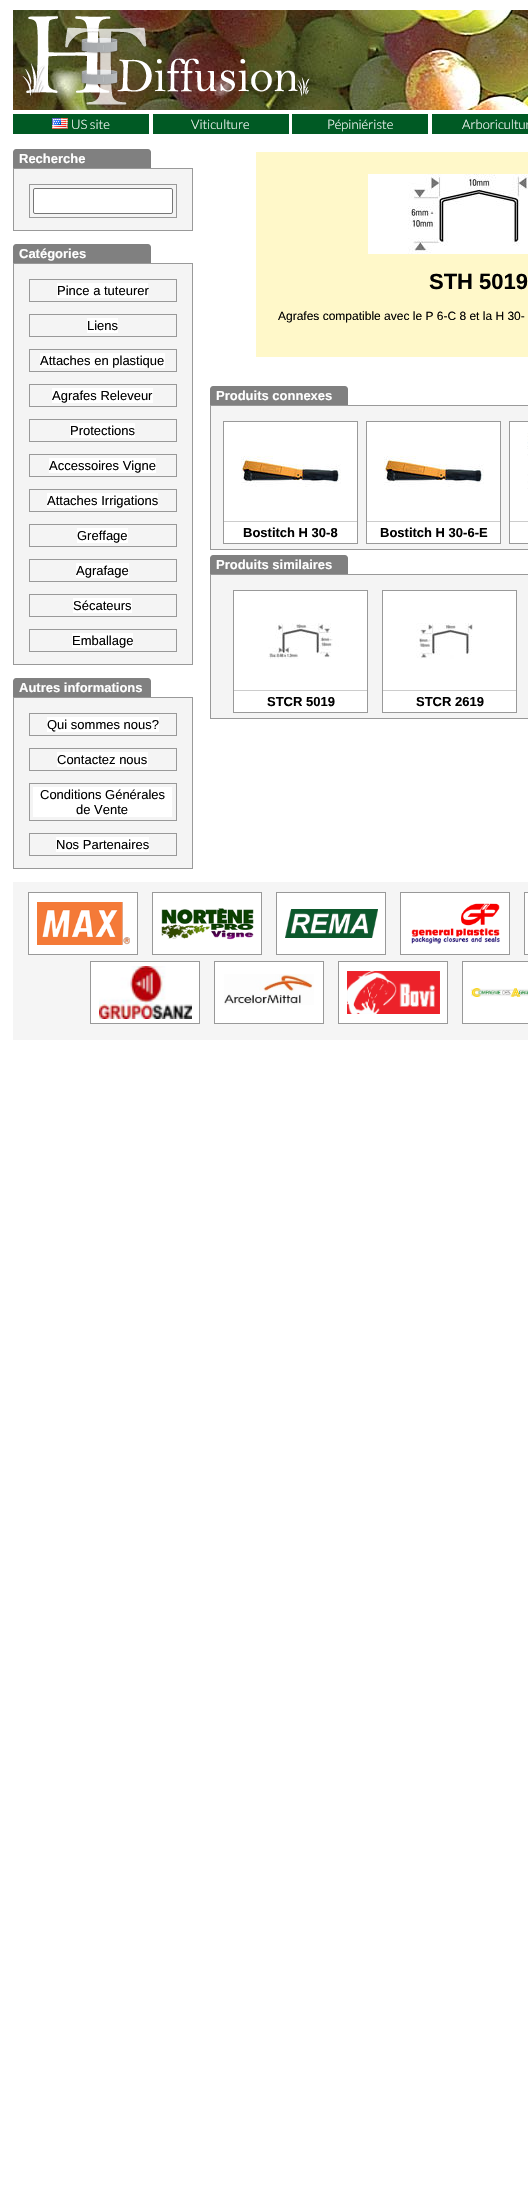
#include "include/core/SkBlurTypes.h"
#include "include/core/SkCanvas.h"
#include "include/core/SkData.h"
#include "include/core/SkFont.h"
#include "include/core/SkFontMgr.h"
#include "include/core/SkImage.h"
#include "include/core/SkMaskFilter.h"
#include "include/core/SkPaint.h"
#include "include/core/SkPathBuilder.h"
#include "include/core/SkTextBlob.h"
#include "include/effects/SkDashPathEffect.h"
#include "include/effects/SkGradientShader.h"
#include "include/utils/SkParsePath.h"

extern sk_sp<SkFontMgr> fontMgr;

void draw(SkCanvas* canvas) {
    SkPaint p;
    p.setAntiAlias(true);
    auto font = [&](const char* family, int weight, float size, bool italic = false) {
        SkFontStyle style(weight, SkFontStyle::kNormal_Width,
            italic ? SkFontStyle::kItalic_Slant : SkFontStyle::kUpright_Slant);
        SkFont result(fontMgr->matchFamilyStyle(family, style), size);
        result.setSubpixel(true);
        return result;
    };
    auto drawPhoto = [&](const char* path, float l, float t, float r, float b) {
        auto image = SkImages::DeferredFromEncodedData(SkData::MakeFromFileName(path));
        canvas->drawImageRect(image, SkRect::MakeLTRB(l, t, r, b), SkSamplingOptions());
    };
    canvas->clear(0xFFFFFFFF);
    drawPhoto("media/1.png", 13, 10, 528, 110);
    drawPhoto("media/2.png", 22, 16, 310, 106);
    p.setColor(0xFF005A24);
    canvas->drawRect(SkRect::MakeLTRB(13, 114, 149, 134), p);
    drawPhoto("media/3.png", 52, 118, 68, 129);
    auto font1 = font("Lato", 300, 13);
    p.setColor(0xFFFFFFFF);
    canvas->drawString("US site", 71, 129, font1, p);
    p.setColor(0xFF005A24);
    canvas->drawRect(SkRect::MakeLTRB(153, 114, 289, 134), p);
    p.setColor(0xFFFFFFFF);
    canvas->drawString("Viticulture", 191, 129, font1, p);
    p.setColor(0xFF005A24);
    canvas->drawRect(SkRect::MakeLTRB(292, 114, 428, 134), p);
    p.setColor(0xFFFFFFFF);
    canvas->drawString("Pépiniériste", 327, 129, font1, p);
    p.setColor(0xFF005A24);
    canvas->drawRect(SkRect::MakeLTRB(432, 114, 528, 134), p);
    p.setColor(0xFFFFFFFF);
    canvas->drawString("Arboricultur", 462, 129, font1, p);
    p.setColor(0xFF808080);
    canvas->drawPath(SkPathBuilder().moveTo(16, 149).lineTo(148, 149).cubicTo(149.5f, 149, 151, 150.5f, 151, 152).lineTo(151, 168).lineTo(13, 168).lineTo(13, 152).cubicTo(13, 150.5f, 14.5f, 149, 16, 149).close().detach(), p);
    auto font2 = font("Liberation Sans", 700, 13);
    p.setColor(0xFFFFFFFF);
    canvas->drawString("Recherche", 19, 163, font2, p);
    p.setColor(0xFFF4F4F4);
    canvas->drawRect(SkRect::MakeLTRB(13.5f, 168.5f, 192.5f, 230.5f), p);
    p.setStyle(SkPaint::kStroke_Style);
    p.setStrokeWidth(1);
    p.setColor(0xFF999999);
    canvas->drawRect(SkRect::MakeLTRB(13.5f, 168.5f, 192.5f, 230.5f), p);
    canvas->drawRect(SkRect::MakeLTRB(29.5f, 184.5f, 176.5f, 217.5f), p);
    p.setStyle(SkPaint::kFill_Style);
    p.setColor(0xFFFFFFFF);
    canvas->drawRoundRect(SkRect::MakeLTRB(33.5f, 188.5f, 172.5f, 213.5f), 1.5f, 1.5f, p);
    p.setStyle(SkPaint::kStroke_Style);
    p.setColor(0xFF767676);
    canvas->drawRoundRect(SkRect::MakeLTRB(33.5f, 188.5f, 172.5f, 213.5f), 1.5f, 1.5f, p);
    p.setStyle(SkPaint::kFill_Style);
    p.setColor(0xFF808080);
    canvas->drawPath(SkPathBuilder().moveTo(16, 244).lineTo(148, 244).cubicTo(149.5f, 244, 151, 245.5f, 151, 247).lineTo(151, 263).lineTo(13, 263).lineTo(13, 247).cubicTo(13, 245.5f, 14.5f, 244, 16, 244).close().detach(), p);
    p.setColor(0xFFFFFFFF);
    canvas->drawString("Catégories", 19, 258, font2, p);
    p.setColor(0xFFF4F4F4);
    canvas->drawRect(SkRect::MakeLTRB(13.5f, 263.5f, 192.5f, 664.5f), p);
    p.setStyle(SkPaint::kStroke_Style);
    p.setColor(0xFF999999);
    canvas->drawRect(SkRect::MakeLTRB(13.5f, 263.5f, 192.5f, 664.5f), p);
    canvas->drawRect(SkRect::MakeLTRB(29.5f, 279.5f, 176.5f, 301.5f), p);
    p.setStyle(SkPaint::kFill_Style);
    p.setColor(0xFFFFFFFF);
    canvas->drawRect(SkRect::MakeLTRB(57, 283, 148, 298), p);
    auto font3 = font("Liberation Sans", 400, 13);
    p.setColor(0xFF000000);
    canvas->drawString("Pince a tuteurer", 57, 295, font3, p);
    p.setStyle(SkPaint::kStroke_Style);
    p.setColor(0xFF999999);
    canvas->drawRect(SkRect::MakeLTRB(29.5f, 314.5f, 176.5f, 336.5f), p);
    p.setStyle(SkPaint::kFill_Style);
    p.setColor(0xFFFFFFFF);
    canvas->drawRect(SkRect::MakeLTRB(87, 318, 118, 333), p);
    p.setColor(0xFF000000);
    canvas->drawString("Liens", 87, 330, font3, p);
    p.setStyle(SkPaint::kStroke_Style);
    p.setColor(0xFF999999);
    canvas->drawRect(SkRect::MakeLTRB(29.5f, 349.5f, 176.5f, 371.5f), p);
    p.setStyle(SkPaint::kFill_Style);
    p.setColor(0xFFFFFFFF);
    canvas->drawRect(SkRect::MakeLTRB(40, 353, 165, 368), p);
    p.setColor(0xFF000000);
    canvas->drawString("Attaches en plastique", 40, 365, font3, p);
    p.setStyle(SkPaint::kStroke_Style);
    p.setColor(0xFF999999);
    canvas->drawRect(SkRect::MakeLTRB(29.5f, 384.5f, 176.5f, 406.5f), p);
    p.setStyle(SkPaint::kFill_Style);
    p.setColor(0xFFFFFFFF);
    canvas->drawRect(SkRect::MakeLTRB(52, 388, 153, 403), p);
    p.setColor(0xFF000000);
    canvas->drawString("Agrafes Releveur", 52, 400, font3, p);
    p.setStyle(SkPaint::kStroke_Style);
    p.setColor(0xFF999999);
    canvas->drawRect(SkRect::MakeLTRB(29.5f, 419.5f, 176.5f, 441.5f), p);
    p.setStyle(SkPaint::kFill_Style);
    p.setColor(0xFFFFFFFF);
    canvas->drawRect(SkRect::MakeLTRB(70, 423, 135, 438), p);
    p.setColor(0xFF000000);
    canvas->drawString("Protections", 70, 435, font3, p);
    p.setStyle(SkPaint::kStroke_Style);
    p.setColor(0xFF999999);
    canvas->drawRect(SkRect::MakeLTRB(29.5f, 454.5f, 176.5f, 476.5f), p);
    p.setStyle(SkPaint::kFill_Style);
    p.setColor(0xFFFFFFFF);
    canvas->drawRect(SkRect::MakeLTRB(49, 458, 156, 473), p);
    p.setColor(0xFF000000);
    canvas->drawString("Accessoires Vigne", 49, 470, font3, p);
    p.setStyle(SkPaint::kStroke_Style);
    p.setColor(0xFF999999);
    canvas->drawRect(SkRect::MakeLTRB(29.5f, 489.5f, 176.5f, 511.5f), p);
    p.setStyle(SkPaint::kFill_Style);
    p.setColor(0xFFFFFFFF);
    canvas->drawRect(SkRect::MakeLTRB(47, 493, 158, 508), p);
    p.setColor(0xFF000000);
    canvas->drawString("Attaches Irrigations", 47, 505, font3, p);
    p.setStyle(SkPaint::kStroke_Style);
    p.setColor(0xFF999999);
    canvas->drawRect(SkRect::MakeLTRB(29.5f, 524.5f, 176.5f, 546.5f), p);
    p.setStyle(SkPaint::kFill_Style);
    p.setColor(0xFFFFFFFF);
    canvas->drawRect(SkRect::MakeLTRB(77, 528, 128, 543), p);
    p.setColor(0xFF000000);
    canvas->drawString("Greffage", 77, 540, font3, p);
    p.setStyle(SkPaint::kStroke_Style);
    p.setColor(0xFF999999);
    canvas->drawRect(SkRect::MakeLTRB(29.5f, 559.5f, 176.5f, 581.5f), p);
    p.setStyle(SkPaint::kFill_Style);
    p.setColor(0xFFFFFFFF);
    canvas->drawRect(SkRect::MakeLTRB(76, 563, 129, 578), p);
    p.setColor(0xFF000000);
    canvas->drawString("Agrafage", 76, 575, font3, p);
    p.setStyle(SkPaint::kStroke_Style);
    p.setColor(0xFF999999);
    canvas->drawRect(SkRect::MakeLTRB(29.5f, 594.5f, 176.5f, 616.5f), p);
    p.setStyle(SkPaint::kFill_Style);
    p.setColor(0xFFFFFFFF);
    canvas->drawRect(SkRect::MakeLTRB(73, 598, 132, 613), p);
    p.setColor(0xFF000000);
    canvas->drawString("Sécateurs", 73, 610, font3, p);
    p.setStyle(SkPaint::kStroke_Style);
    p.setColor(0xFF999999);
    canvas->drawRect(SkRect::MakeLTRB(29.5f, 629.5f, 176.5f, 651.5f), p);
    p.setStyle(SkPaint::kFill_Style);
    p.setColor(0xFFFFFFFF);
    canvas->drawRect(SkRect::MakeLTRB(72, 633, 133, 648), p);
    p.setColor(0xFF000000);
    canvas->drawString("Emballage", 72, 645, font3, p);
    p.setColor(0xFF808080);
    canvas->drawPath(SkPathBuilder().moveTo(16, 678).lineTo(148, 678).cubicTo(149.5f, 678, 151, 679.5f, 151, 681).lineTo(151, 697).lineTo(13, 697).lineTo(13, 681).cubicTo(13, 679.5f, 14.5f, 678, 16, 678).close().detach(), p);
    p.setColor(0xFFFFFFFF);
    canvas->drawString("Autres informations", 19, 692, font2, p);
    p.setColor(0xFFF4F4F4);
    canvas->drawRect(SkRect::MakeLTRB(13.5f, 697.5f, 192.5f, 868.5f), p);
    p.setStyle(SkPaint::kStroke_Style);
    p.setColor(0xFF999999);
    canvas->drawRect(SkRect::MakeLTRB(13.5f, 697.5f, 192.5f, 868.5f), p);
    canvas->drawRect(SkRect::MakeLTRB(29.5f, 713.5f, 176.5f, 735.5f), p);
    p.setStyle(SkPaint::kFill_Style);
    p.setColor(0xFFFFFFFF);
    canvas->drawRect(SkRect::MakeLTRB(47, 717, 159, 732), p);
    p.setColor(0xFF000000);
    canvas->drawString("Qui sommes nous?", 47, 729, font3, p);
    p.setStyle(SkPaint::kStroke_Style);
    p.setColor(0xFF999999);
    canvas->drawRect(SkRect::MakeLTRB(29.5f, 748.5f, 176.5f, 770.5f), p);
    p.setStyle(SkPaint::kFill_Style);
    p.setColor(0xFFFFFFFF);
    canvas->drawRect(SkRect::MakeLTRB(57, 752, 148, 767), p);
    p.setColor(0xFF000000);
    canvas->drawString("Contactez nous", 57, 764, font3, p);
    p.setStyle(SkPaint::kStroke_Style);
    p.setColor(0xFF999999);
    canvas->drawRect(SkRect::MakeLTRB(29.5f, 783.5f, 176.5f, 820.5f), p);
    p.setStyle(SkPaint::kFill_Style);
    p.setColor(0xFFFFFFFF);
    canvas->drawRect(SkRect::MakeLTRB(33, 787, 172, 817), p);
    p.setColor(0xFF000000);
    canvas->drawString("Conditions Générales", 40, 799, font3, p);
    canvas->drawString("de Vente", 76, 814, font3, p);
    p.setStyle(SkPaint::kStroke_Style);
    p.setColor(0xFF999999);
    canvas->drawRect(SkRect::MakeLTRB(29.5f, 833.5f, 176.5f, 855.5f), p);
    p.setStyle(SkPaint::kFill_Style);
    p.setColor(0xFFFFFFFF);
    canvas->drawRect(SkRect::MakeLTRB(56, 837, 149, 852), p);
    p.setColor(0xFF000000);
    canvas->drawString("Nos Partenaires", 56, 849, font3, p);
    p.setColor(0xFFFFF8C9);
    canvas->drawRect(SkRect::MakeLTRB(256, 152, 528, 357), p);
    drawPhoto("media/4.png", 368, 174, 528, 254);
    auto font4 = font("Liberation Sans", 700, 22);
    p.setColor(0xFF000000);
    canvas->drawString("STH 5019", 429, 289, font4, p);
    auto font5 = font("Liberation Sans", 400, 12);
    canvas->drawString("Agrafes compatible avec le P 6-C 8 et la H 30-", 278, 320, font5, p);
    p.setColor(0xFF808080);
    canvas->drawPath(SkPathBuilder().moveTo(213, 386).lineTo(345, 386).cubicTo(346.5f, 386, 348, 387.5f, 348, 389).lineTo(348, 405).lineTo(210, 405).lineTo(210, 389).cubicTo(210, 387.5f, 211.5f, 386, 213, 386).close().detach(), p);
    p.setColor(0xFFFFFFFF);
    canvas->drawString("Produits connexes", 216, 400, font2, p);
    p.setColor(0xFFF4F4F4);
    canvas->drawRect(SkRect::MakeLTRB(210.5f, 405.5f, 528.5f, 549.5f), p);
    p.setStyle(SkPaint::kStroke_Style);
    p.setColor(0xFF999999);
    canvas->drawRect(SkRect::MakeLTRB(210.5f, 405.5f, 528.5f, 549.5f), p);
    canvas->drawRect(SkRect::MakeLTRB(223.5f, 421.5f, 357.5f, 543.5f), p);
    p.setStyle(SkPaint::kFill_Style);
    p.setColor(0xFFFFFFFF);
    canvas->drawRect(SkRect::MakeLTRB(224, 422, 357, 543), p);
    drawPhoto("media/5.png", 241, 456, 341, 487);
    p.setColor(0xFFCCCCCC);
    canvas->drawRect(SkRect::MakeLTRB(224, 521, 357, 522), p);
    p.setColor(0xFF000000);
    canvas->drawString("Bostitch H 30-8", 243, 537, font2, p);
    p.setStyle(SkPaint::kStroke_Style);
    p.setColor(0xFF999999);
    canvas->drawRect(SkRect::MakeLTRB(366.5f, 421.5f, 500.5f, 543.5f), p);
    p.setStyle(SkPaint::kFill_Style);
    p.setColor(0xFFFFFFFF);
    canvas->drawRect(SkRect::MakeLTRB(367, 422, 500, 543), p);
    drawPhoto("media/5.png", 384, 456, 484, 487);
    p.setColor(0xFFCCCCCC);
    canvas->drawRect(SkRect::MakeLTRB(367, 521, 500, 522), p);
    p.setColor(0xFF000000);
    canvas->drawString("Bostitch H 30-6-E", 380, 537, font2, p);
    p.setStyle(SkPaint::kStroke_Style);
    p.setColor(0xFF999999);
    canvas->drawRect(SkRect::MakeLTRB(509.5f, 421.5f, 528.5f, 543.5f), p);
    p.setStyle(SkPaint::kFill_Style);
    p.setColor(0xFFFFFFFF);
    canvas->drawRect(SkRect::MakeLTRB(510, 422, 528, 543), p);
    drawPhoto("media/6.png", 527, 433, 528, 489);
    p.setColor(0xFFCCCCCC);
    canvas->drawRect(SkRect::MakeLTRB(510, 521, 528, 522), p);
    p.setColor(0xFF808080);
    canvas->drawPath(SkPathBuilder().moveTo(213, 555).lineTo(345, 555).cubicTo(346.5f, 555, 348, 556.5f, 348, 558).lineTo(348, 574).lineTo(210, 574).lineTo(210, 558).cubicTo(210, 556.5f, 211.5f, 555, 213, 555).close().detach(), p);
    p.setColor(0xFFFFFFFF);
    canvas->drawString("Produits similaires", 216, 569, font2, p);
    p.setColor(0xFFF4F4F4);
    canvas->drawRect(SkRect::MakeLTRB(210.5f, 574.5f, 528.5f, 718.5f), p);
    p.setStyle(SkPaint::kStroke_Style);
    p.setColor(0xFF999999);
    canvas->drawRect(SkRect::MakeLTRB(210.5f, 574.5f, 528.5f, 718.5f), p);
    canvas->drawRect(SkRect::MakeLTRB(233.5f, 590.5f, 367.5f, 712.5f), p);
    p.setStyle(SkPaint::kFill_Style);
    p.setColor(0xFFFFFFFF);
    canvas->drawRect(SkRect::MakeLTRB(234, 591, 367, 712), p);
    drawPhoto("media/7.png", 268, 623, 339, 659);
    p.setColor(0xFFCCCCCC);
    canvas->drawRect(SkRect::MakeLTRB(234, 690, 367, 691), p);
    p.setColor(0xFF000000);
    canvas->drawString("STCR 5019", 267, 706, font2, p);
    p.setStyle(SkPaint::kStroke_Style);
    p.setColor(0xFF999999);
    canvas->drawRect(SkRect::MakeLTRB(382.5f, 590.5f, 516.5f, 712.5f), p);
    p.setStyle(SkPaint::kFill_Style);
    p.setColor(0xFFFFFFFF);
    canvas->drawRect(SkRect::MakeLTRB(383, 591, 516, 712), p);
    drawPhoto("media/8.png", 416, 623, 473, 659);
    p.setColor(0xFFCCCCCC);
    canvas->drawRect(SkRect::MakeLTRB(383, 690, 516, 691), p);
    p.setColor(0xFF000000);
    canvas->drawString("STCR 2619", 416, 706, font2, p);
    p.setColor(0xFFF5F5F5);
    canvas->drawRect(SkRect::MakeLTRB(13, 882, 528, 1040), p);
    p.setStyle(SkPaint::kStroke_Style);
    p.setColor(0xFF999999);
    canvas->drawRect(SkRect::MakeLTRB(28.5f, 892.5f, 137.5f, 954.5f), p);
    p.setStyle(SkPaint::kFill_Style);
    p.setColor(0xFFFFFFFF);
    canvas->drawRect(SkRect::MakeLTRB(29, 893, 137, 954), p);
    drawPhoto("media/9.png", 37, 902, 130, 945);
    p.setStyle(SkPaint::kStroke_Style);
    p.setColor(0xFF999999);
    canvas->drawRect(SkRect::MakeLTRB(152.5f, 892.5f, 261.5f, 954.5f), p);
    p.setStyle(SkPaint::kFill_Style);
    p.setColor(0xFFFFFFFF);
    canvas->drawRect(SkRect::MakeLTRB(153, 893, 261, 954), p);
    drawPhoto("media/10.png", 161, 908, 254, 940);
    p.setStyle(SkPaint::kStroke_Style);
    p.setColor(0xFF999999);
    canvas->drawRect(SkRect::MakeLTRB(276.5f, 892.5f, 385.5f, 954.5f), p);
    p.setStyle(SkPaint::kFill_Style);
    p.setColor(0xFFFFFFFF);
    canvas->drawRect(SkRect::MakeLTRB(277, 893, 385, 954), p);
    drawPhoto("media/11.png", 285, 909, 378, 938);
    p.setStyle(SkPaint::kStroke_Style);
    p.setColor(0xFF999999);
    canvas->drawRect(SkRect::MakeLTRB(400.5f, 892.5f, 509.5f, 954.5f), p);
    p.setStyle(SkPaint::kFill_Style);
    p.setColor(0xFFFFFFFF);
    canvas->drawRect(SkRect::MakeLTRB(401, 893, 509, 954), p);
    drawPhoto("media/12.png", 411, 903, 500, 944);
    p.setStyle(SkPaint::kStroke_Style);
    p.setColor(0xFF999999);
    canvas->drawRect(SkRect::MakeLTRB(524.5f, 892.5f, 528.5f, 954.5f), p);
    p.setStyle(SkPaint::kFill_Style);
    p.setColor(0xFFFFFFFF);
    canvas->drawRect(SkRect::MakeLTRB(525, 893, 528, 954), p);
    p.setStyle(SkPaint::kStroke_Style);
    p.setColor(0xFF999999);
    canvas->drawRect(SkRect::MakeLTRB(90.5f, 961.5f, 199.5f, 1023.5f), p);
    p.setStyle(SkPaint::kFill_Style);
    p.setColor(0xFFFFFFFF);
    canvas->drawRect(SkRect::MakeLTRB(91, 962, 199, 1023), p);
    drawPhoto("media/13.png", 99, 966, 192, 1019);
    p.setStyle(SkPaint::kStroke_Style);
    p.setColor(0xFF999999);
    canvas->drawRect(SkRect::MakeLTRB(214.5f, 961.5f, 323.5f, 1023.5f), p);
    p.setStyle(SkPaint::kFill_Style);
    p.setColor(0xFFFFFFFF);
    canvas->drawRect(SkRect::MakeLTRB(215, 962, 323, 1023), p);
    drawPhoto("media/14.png", 224, 974, 314, 1005);
    p.setStyle(SkPaint::kStroke_Style);
    p.setColor(0xFF999999);
    canvas->drawRect(SkRect::MakeLTRB(338.5f, 961.5f, 447.5f, 1023.5f), p);
    p.setStyle(SkPaint::kFill_Style);
    p.setColor(0xFFFFFFFF);
    canvas->drawRect(SkRect::MakeLTRB(339, 962, 447, 1023), p);
    drawPhoto("media/15.png", 347, 971, 440, 1014);
    p.setStyle(SkPaint::kStroke_Style);
    p.setColor(0xFF999999);
    canvas->drawRect(SkRect::MakeLTRB(462.5f, 961.5f, 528.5f, 1023.5f), p);
    p.setStyle(SkPaint::kFill_Style);
    p.setColor(0xFFFFFFFF);
    canvas->drawRect(SkRect::MakeLTRB(463, 962, 528, 1023), p);
    drawPhoto("media/16.png", 471, 988, 528, 997);
}
